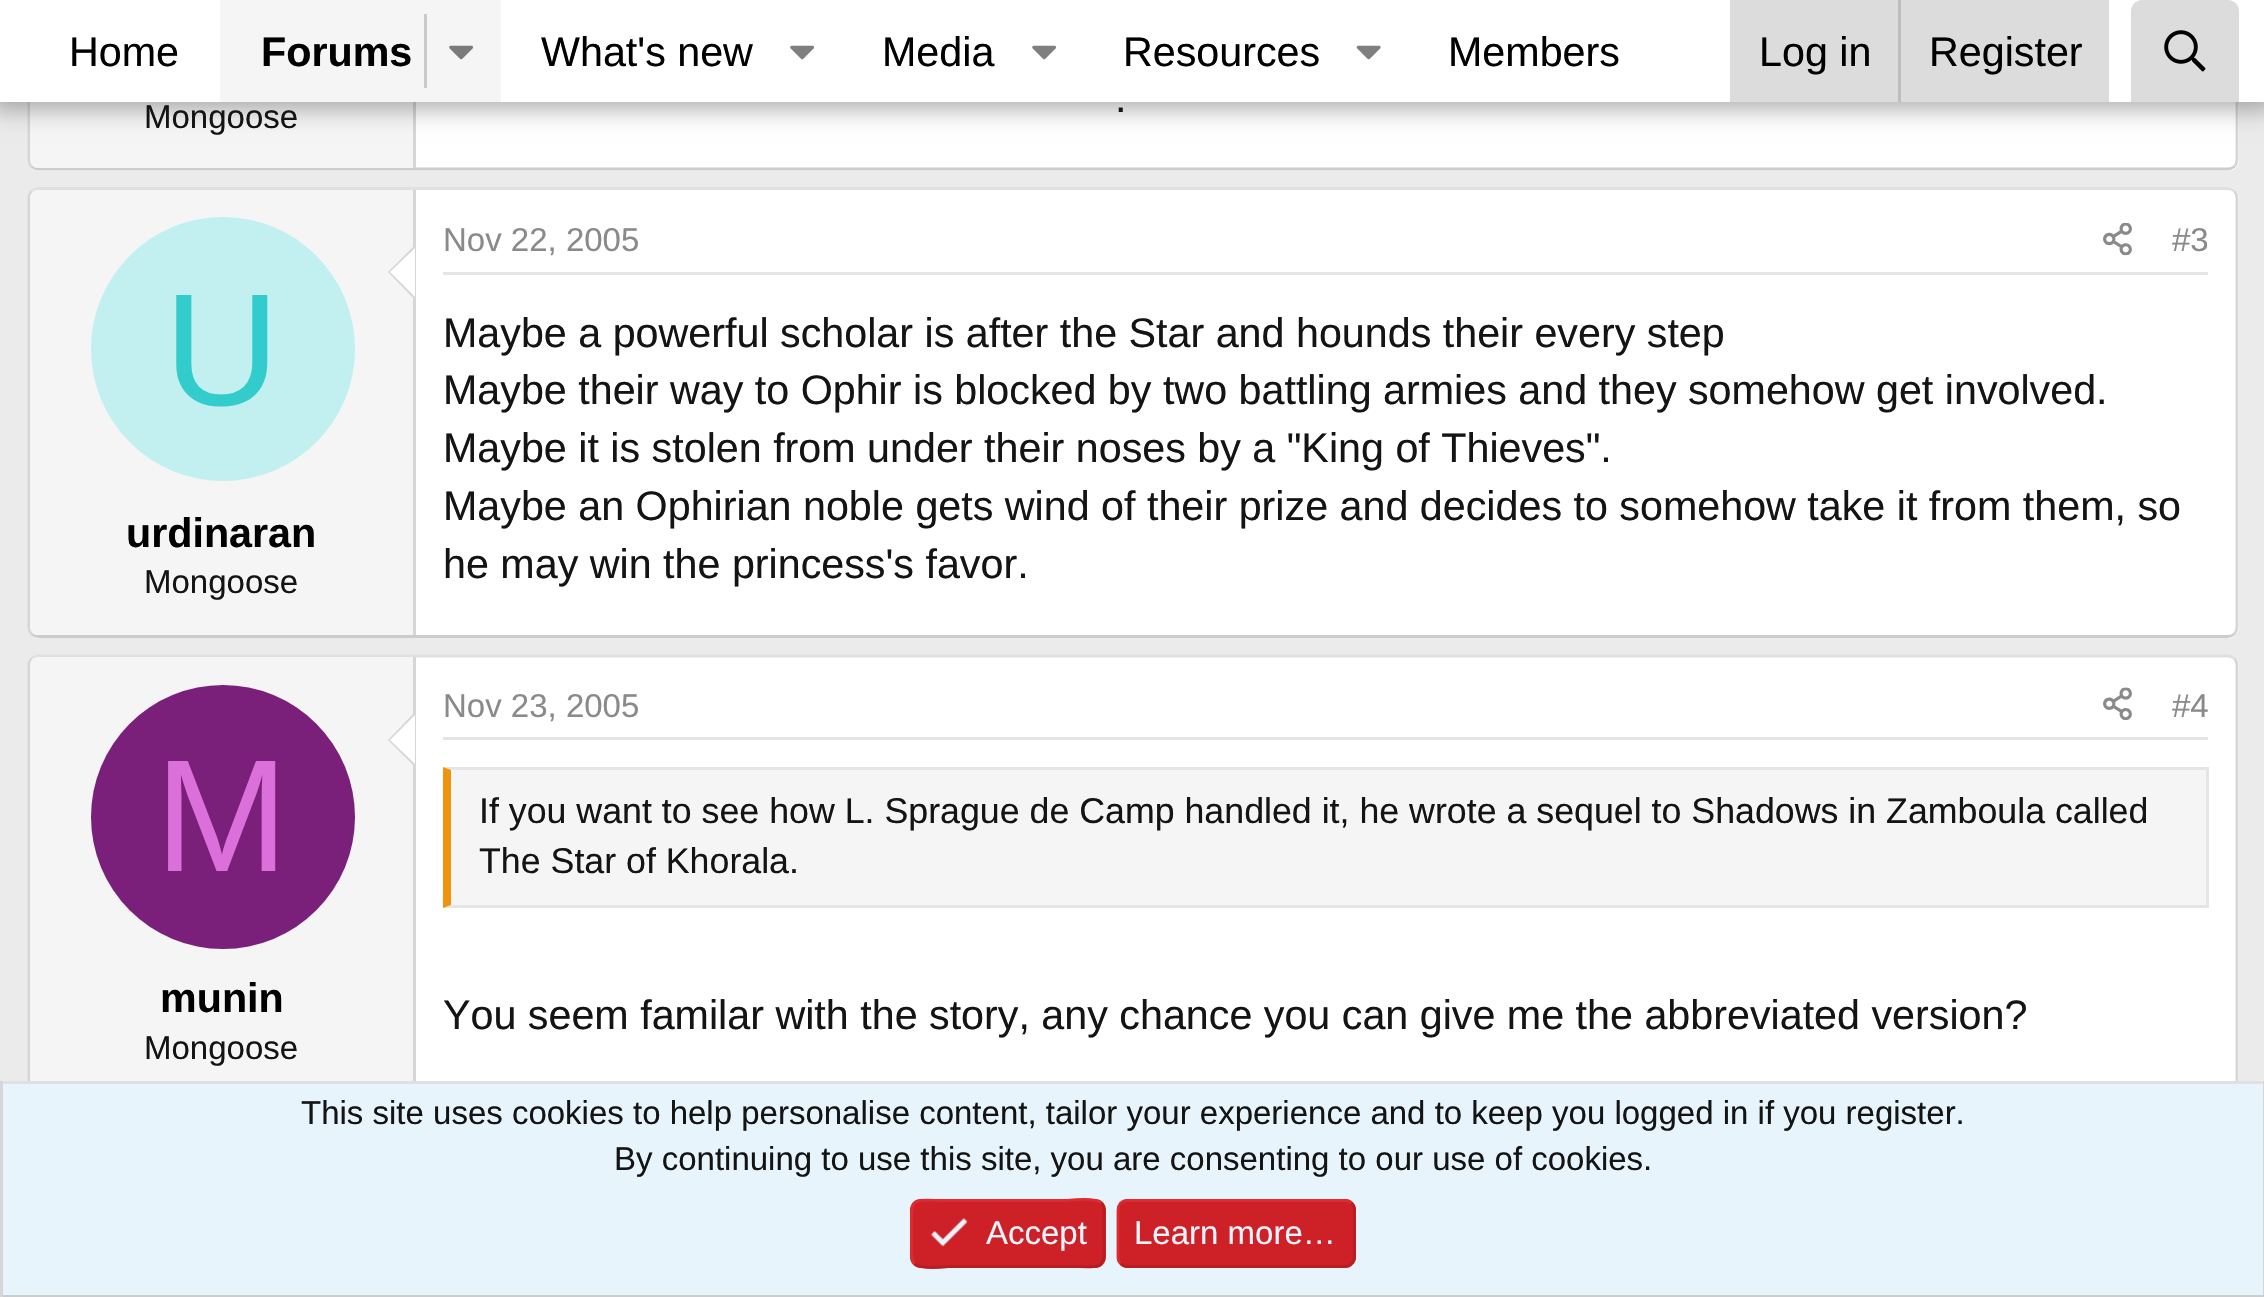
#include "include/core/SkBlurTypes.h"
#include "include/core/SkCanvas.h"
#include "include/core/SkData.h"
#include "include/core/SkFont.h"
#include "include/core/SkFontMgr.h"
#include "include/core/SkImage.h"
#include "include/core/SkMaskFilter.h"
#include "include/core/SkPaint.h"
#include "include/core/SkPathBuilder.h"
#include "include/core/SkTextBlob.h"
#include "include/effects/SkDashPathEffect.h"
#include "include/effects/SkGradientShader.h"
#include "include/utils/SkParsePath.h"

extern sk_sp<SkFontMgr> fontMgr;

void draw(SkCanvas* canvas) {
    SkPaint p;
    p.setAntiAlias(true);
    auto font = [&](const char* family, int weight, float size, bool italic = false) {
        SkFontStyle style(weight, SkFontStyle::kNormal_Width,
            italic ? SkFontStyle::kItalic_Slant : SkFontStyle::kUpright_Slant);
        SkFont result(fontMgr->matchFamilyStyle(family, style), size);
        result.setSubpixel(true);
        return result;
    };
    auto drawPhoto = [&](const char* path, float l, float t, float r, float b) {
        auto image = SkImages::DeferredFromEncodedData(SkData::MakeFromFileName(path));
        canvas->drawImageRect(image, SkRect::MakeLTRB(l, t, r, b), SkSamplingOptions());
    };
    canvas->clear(0xFFEBEBEB);
    p.setColor(0xFFFFFFFF);
    canvas->drawRoundRect(SkRect::MakeLTRB(28, -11, 2239, 171), 11, 11, p);
    p.setStyle(SkPaint::kStroke_Style);
    p.setStrokeWidth(2.8f);
    p.setColor(0xFFD6D6D6);
    canvas->drawPath(SkPathBuilder().moveTo(2234.5f, -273.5f).cubicTo(2236, -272, 2237, -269.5f, 2237, -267).lineTo(2237, 159.5f).cubicTo(2237, 162, 2236, 164.5f, 2234.5f, 166.5f).detach(), p);
    p.setColor(0xFFCCCCCC);
    canvas->drawPath(SkPathBuilder().moveTo(2234.5f, 166.5f).cubicTo(2232.5f, 168, 2230, 169, 2227.5f, 169).lineTo(38.5f, 169).cubicTo(36, 169, 33.5f, 168, 31.5f, 166.5f).detach(), p);
    p.setColor(0xFFD6D6D6);
    canvas->drawPath(SkPathBuilder().moveTo(31.5f, 166.5f).cubicTo(30, 164.5f, 29, 162, 29, 159.5f).lineTo(29, -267).cubicTo(29, -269.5f, 30, -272, 31.5f, -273.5f).detach(), p);
    p.setStyle(SkPaint::kFill_Style);
    p.setColor(0xFFF5F5F5);
    canvas->drawPath(SkPathBuilder().moveTo(38, -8).lineTo(415, -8).lineTo(415, 168).lineTo(38, 168).cubicTo(33.5f, 168, 30, 164.5f, 30, 160).lineTo(30, 0).cubicTo(30, -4.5f, 33.5f, -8, 38, -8).close().detach(), p);
    p.setColor(0xFFD6D6D6);
    canvas->drawRect(SkRect::MakeLTRB(413, 102, 416, 168), p);
    p.setColor(0x4D000000);
    p.setMaskFilter(SkMaskFilter::MakeBlur(kNormal_SkBlurStyle, 11));
    canvas->drawRect(SkRect::MakeLTRB(-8, -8, 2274, 110), p);
    p.setMaskFilter(nullptr);
    p.setColor(0xFFFFFFFF);
    canvas->drawRect(SkRect::MakeLTRB(0, 0, 2264, 102), p);
    auto font1 = font("Liberation Sans", 400, 41.25f);
    p.setColor(0xFF000000);
    canvas->drawString("Home", 69, 66, font1, p);
    p.setColor(0xFFF5F5F5);
    canvas->drawRect(SkRect::MakeLTRB(220, 0, 501, 102), p);
    auto font2 = font("Liberation Sans", 700, 41.25f);
    p.setColor(0xFF000000);
    canvas->drawString("Forums", 261, 66, font2, p);
    p.setColor(0xFFCACACA);
    canvas->drawRect(SkRect::MakeLTRB(424, 14, 427, 88), p);
    drawPhoto("media/1.png", 449, 45, 473, 60);
    p.setColor(0xFF000000);
    canvas->drawString("What's new", 541, 66, font1, p);
    drawPhoto("media/2.png", 790, 45, 814, 60);
    canvas->drawString("Media", 882, 66, font1, p);
    drawPhoto("media/2.png", 1032, 45, 1056, 60);
    canvas->drawString("Resources", 1123, 66, font1, p);
    drawPhoto("media/3.png", 1356, 45, 1381, 60);
    canvas->drawString("Members", 1448, 66, font1, p);
    p.setColor(0xFFDCDCDC);
    canvas->drawRect(SkRect::MakeLTRB(1730, 0, 2109, 102), p);
    p.setColor(0xFF000000);
    canvas->drawString("Log in", 1759, 66, font1, p);
    p.setColor(0xFFBEBEBE);
    canvas->drawRect(SkRect::MakeLTRB(1898, 0, 1901, 102), p);
    p.setColor(0xFF000000);
    canvas->drawString("Register", 1929, 66, font1, p);
    p.setColor(0xFFDCDCDC);
    canvas->drawPath(SkPathBuilder().moveTo(2142, 0).lineTo(2228, 0).cubicTo(2234, 0, 2239, 5, 2239, 11).lineTo(2239, 102).lineTo(2131, 102).lineTo(2131, 11).cubicTo(2131, 5, 2136, 0, 2142, 0).close().detach(), p);
    drawPhoto("media/4.png", 2164, 30, 2206, 72);
    auto font3 = font("Liberation Sans", 400, 33);
    p.setColor(0xFF141414);
    canvas->drawString("Mongoose", 144, 128, font3, p);
    canvas->drawString(".", 1115, 112, font1, p);
    p.setColor(0xFFFFFFFF);
    canvas->drawRoundRect(SkRect::MakeLTRB(28, 187, 2239, 638), 11, 11, p);
    p.setStyle(SkPaint::kStroke_Style);
    p.setColor(0xFFE0E0E0);
    canvas->drawPath(SkPathBuilder().moveTo(31.5f, 191).cubicTo(33.5f, 189.5f, 36, 188.5f, 38.5f, 188.5f).lineTo(2227.5f, 188.5f).cubicTo(2230, 188.5f, 2232.5f, 189.5f, 2234.5f, 191).detach(), p);
    p.setColor(0xFFD6D6D6);
    canvas->drawPath(SkPathBuilder().moveTo(2234.5f, 191).cubicTo(2236, 193, 2237, 195.5f, 2237, 198).lineTo(2237, 627).cubicTo(2237, 629.5f, 2236, 632, 2234.5f, 634).detach(), p);
    p.setColor(0xFFCCCCCC);
    canvas->drawPath(SkPathBuilder().moveTo(2234.5f, 634).cubicTo(2232.5f, 635.5f, 2230, 636.5f, 2227.5f, 636.5f).lineTo(38.5f, 636.5f).cubicTo(36, 636.5f, 33.5f, 635.5f, 31.5f, 634).detach(), p);
    p.setColor(0xFFD6D6D6);
    canvas->drawPath(SkPathBuilder().moveTo(31.5f, 634).cubicTo(30, 632, 29, 629.5f, 29, 627).lineTo(29, 198).cubicTo(29, 195.5f, 30, 193, 31.5f, 191).detach(), p);
    p.setStyle(SkPaint::kFill_Style);
    p.setColor(0xFFF5F5F5);
    canvas->drawPath(SkPathBuilder().moveTo(38, 190).lineTo(415, 190).lineTo(415, 635).lineTo(38, 635).cubicTo(33.5f, 635, 30, 631.5f, 30, 627).lineTo(30, 198).cubicTo(30, 193.5f, 33.5f, 190, 38, 190).close().detach(), p);
    p.setColor(0xFFD6D6D6);
    canvas->drawRect(SkRect::MakeLTRB(413, 190, 416, 635), p);
    canvas->drawPath(SkPathBuilder().moveTo(415, 245).lineTo(415, 300).lineTo(388, 272).close().detach(), p);
    p.setColor(0xFFFFFFFF);
    canvas->drawPath(SkPathBuilder().moveTo(415, 248).lineTo(415, 297).lineTo(390, 272).close().detach(), p);
    p.setColor(0xFFC2F0F0);
    canvas->drawCircle(223, 349, 132, p);
    auto font4 = font("Liberation Sans", 400, 160);
    p.setColor(0xFF33CCCC);
    canvas->drawString("U", 164, 405, font4, p);
    p.setColor(0xFF000000);
    canvas->drawString("urdinaran", 126, 547, font2, p);
    p.setColor(0xFF141414);
    canvas->drawString("Mongoose", 144, 593, font3, p);
    p.setColor(0xFFE5E5E5);
    canvas->drawRect(SkRect::MakeLTRB(443, 272, 2208, 275), p);
    p.setColor(0xFF8A8A8A);
    canvas->drawString("Nov 22, 2005", 443, 251, font3, p);
    drawPhoto("media/5.png", 2103, 222, 2132, 256);
    canvas->drawString("#3", 2172, 251, font3, p);
    p.setColor(0xFF141414);
    {
        const struct { const char* s; float x, y; } items[] = {
            {"Maybe a powerful scholar is after the Star and hounds their every step", 443, 347},
            {"Maybe their way to Ophir is blocked by two battling armies and they somehow get involved.", 443, 404},
            {"Maybe it is stolen from under their noses by a \"King of Thieves\".", 443, 462},
            {"Maybe an Ophirian noble gets wind of their prize and decides to somehow take it from them, so", 443, 520},
            {"he may win the princess's favor.", 443, 578},
        };
        for (auto [s, x, y] : items) {
            canvas->drawString(s, x, y, font1, p);
        }
    }
    p.setColor(0xFFFFFFFF);
    canvas->drawRoundRect(SkRect::MakeLTRB(28, 655, 2239, 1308), 11, 11, p);
    p.setStyle(SkPaint::kStroke_Style);
    p.setColor(0xFFE0E0E0);
    canvas->drawPath(SkPathBuilder().moveTo(31.5f, 658.5f).cubicTo(33.5f, 657, 36, 656, 38.5f, 656).lineTo(2227.5f, 656).cubicTo(2230, 656, 2232.5f, 657, 2234.5f, 658.5f).detach(), p);
    p.setColor(0xFFD6D6D6);
    canvas->drawPath(SkPathBuilder().moveTo(2234.5f, 658.5f).cubicTo(2236, 660.5f, 2237, 663, 2237, 665.5f).lineTo(2237, 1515).cubicTo(2237, 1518, 2236, 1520.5f, 2234.5f, 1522).detach(), p);
    canvas->drawPath(SkPathBuilder().moveTo(31.5f, 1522).cubicTo(30, 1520.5f, 29, 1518, 29, 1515).lineTo(29, 665.5f).cubicTo(29, 663, 30, 660.5f, 31.5f, 658.5f).detach(), p);
    p.setStyle(SkPaint::kFill_Style);
    p.setColor(0xFFF5F5F5);
    canvas->drawPath(SkPathBuilder().moveTo(38, 657).lineTo(415, 657).lineTo(415, 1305).lineTo(38, 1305).cubicTo(33.5f, 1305, 30, 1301.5f, 30, 1297).lineTo(30, 665).cubicTo(30, 660.5f, 33.5f, 657, 38, 657).close().detach(), p);
    p.setColor(0xFFD6D6D6);
    canvas->drawRect(SkRect::MakeLTRB(413, 657, 416, 1081), p);
    canvas->drawPath(SkPathBuilder().moveTo(415, 712).lineTo(415, 767).lineTo(388, 740).close().detach(), p);
    p.setColor(0xFFFFFFFF);
    canvas->drawPath(SkPathBuilder().moveTo(415, 715).lineTo(415, 764).lineTo(390, 740).close().detach(), p);
    p.setColor(0xFF7A1F7A);
    canvas->drawCircle(223, 817, 132, p);
    p.setColor(0xFFDB70DB);
    canvas->drawString("M", 155, 871, font4, p);
    p.setColor(0xFF000000);
    canvas->drawString("munin", 160, 1012, font2, p);
    p.setColor(0xFF141414);
    canvas->drawString("Mongoose", 144, 1059, font3, p);
    p.setColor(0xFFE5E5E5);
    canvas->drawRect(SkRect::MakeLTRB(443, 737, 2208, 740), p);
    p.setColor(0xFF8A8A8A);
    canvas->drawString("Nov 23, 2005", 443, 717, font3, p);
    drawPhoto("media/6.png", 2103, 687, 2132, 720);
    canvas->drawString("#4", 2172, 717, font3, p);
    p.setColor(0xFFF5F5F5);
    canvas->drawRect(SkRect::MakeLTRB(451, 770, 2206, 905), p);
    p.setColor(0xFFE5E5E5);
    canvas->drawPath(SkPathBuilder().moveTo(443, 767).lineTo(2208, 767).lineTo(2206, 770).lineTo(451, 770).close().detach(), p);
    canvas->drawRect(SkRect::MakeLTRB(2206, 767, 2209, 908), p);
    canvas->drawPath(SkPathBuilder().moveTo(2208, 908).lineTo(443, 908).lineTo(451, 905).lineTo(2206, 905).close().detach(), p);
    p.setColor(0xFFF2930D);
    canvas->drawPath(SkPathBuilder().moveTo(443, 908).lineTo(443, 767).lineTo(451, 770).lineTo(451, 905).close().detach(), p);
    auto font5 = font("Liberation Sans", 400, 35.75f);
    p.setColor(0xFF141414);
    canvas->drawString("If you want to see how L. Sprague de Camp handled it, he wrote a sequel to Shadows in Zamboula called", 479, 823, font5, p);
    canvas->drawString("The Star of Khorala.", 479, 873, font5, p);
    canvas->drawString("You seem familar with the story, any chance you can give me the abbreviated version?", 443, 1029, font1, p);
    {
        const struct { float l, t, r, b; SkColor color; } items[] = {
            {3, 1084, 2263, 1295, 0xFFE8F4FC},
            {0, 1081, 2264, 1084, 0xFFE0E0E0},
            {2263, 1081, 2264, 1297, 0xFFD6D6D6},
            {0, 1295, 2264, 1297, 0xFFCCCCCC},
            {0, 1081, 3, 1297, 0xFFD6D6D6},
        };
        for (auto [l, t, r, b, color] : items) {
            p.setColor(color);
            canvas->drawRect(SkRect::MakeLTRB(l, t, r, b), p);
        }
    }
    p.setColor(0xFF141414);
    canvas->drawString("This site uses cookies to help personalise content, tailor your experience and to keep you logged in if you register.", 301, 1124, font3, p);
    canvas->drawString("By continuing to use this site, you are consenting to our use of cookies.", 614, 1170, font3, p);
    p.setColor(0xFFCE2027);
    canvas->drawRoundRect(SkRect::MakeLTRB(910, 1199, 1106, 1268), 11, 11, p);
    p.setStyle(SkPaint::kStroke_Style);
    p.setColor(0xFFB81D23);
    canvas->drawPath(SkPathBuilder().moveTo(1101.5f, 1203).cubicTo(1105, 1207, 1104, 1213, 1104, 1218).lineTo(1104, 1233.5f).cubicTo(1104, 1272, 1107.5f, 1266.5f, 1065.5f, 1266.5f).lineTo(950, 1266.5f).cubicTo(949, 1266.5f, 921.5f, 1270.5f, 914.5f, 1263.5f).detach(), p);
    p.setColor(0xFFDE2A31);
    canvas->drawPath(SkPathBuilder().moveTo(914.5f, 1263.5f).cubicTo(910.5f, 1259.5f, 911.5f, 1254, 911.5f, 1249).lineTo(911.5f, 1233.5f).cubicTo(911.5f, 1194.5f, 908, 1200.5f, 950, 1200.5f).lineTo(1065.5f, 1200.5f).cubicTo(1067, 1200.5f, 1094.5f, 1196.5f, 1101.5f, 1203).detach(), p);
    drawPhoto("media/7.png", 931, 1218, 968, 1247);
    p.setStyle(SkPaint::kFill_Style);
    p.setColor(0xFFE8F4FC);
    canvas->drawString("Accept", 986, 1244, font3, p);
    p.setColor(0xFFCE2027);
    canvas->drawRoundRect(SkRect::MakeLTRB(1117, 1199, 1356, 1268), 11, 11, p);
    p.setStyle(SkPaint::kStroke_Style);
    p.setColor(0xFFB81D23);
    canvas->drawPath(SkPathBuilder().moveTo(1351.5f, 1203).cubicTo(1353.5f, 1205, 1354.5f, 1207.5f, 1354.5f, 1210).lineTo(1354.5f, 1257).cubicTo(1354.5f, 1259.5f, 1353.5f, 1262, 1351.5f, 1263.5f).cubicTo(1350, 1265.5f, 1347.5f, 1266.5f, 1345, 1266.5f).lineTo(1127.5f, 1266.5f).cubicTo(1125, 1266.5f, 1122.5f, 1265.5f, 1120.5f, 1263.5f).detach(), p);
    p.setColor(0xFFDE2A31);
    canvas->drawPath(SkPathBuilder().moveTo(1120.5f, 1263.5f).cubicTo(1119, 1262, 1118, 1259.5f, 1118, 1257).lineTo(1118, 1210).cubicTo(1118, 1207.5f, 1119, 1205, 1120.5f, 1203).cubicTo(1122.5f, 1201.5f, 1125, 1200.5f, 1127.5f, 1200.5f).lineTo(1345, 1200.5f).cubicTo(1347.5f, 1200.5f, 1350, 1201.5f, 1351.5f, 1203).detach(), p);
    p.setStyle(SkPaint::kFill_Style);
    p.setColor(0xFFE8F4FC);
    canvas->drawString("Learn more…", 1134, 1244, font3, p);
}
